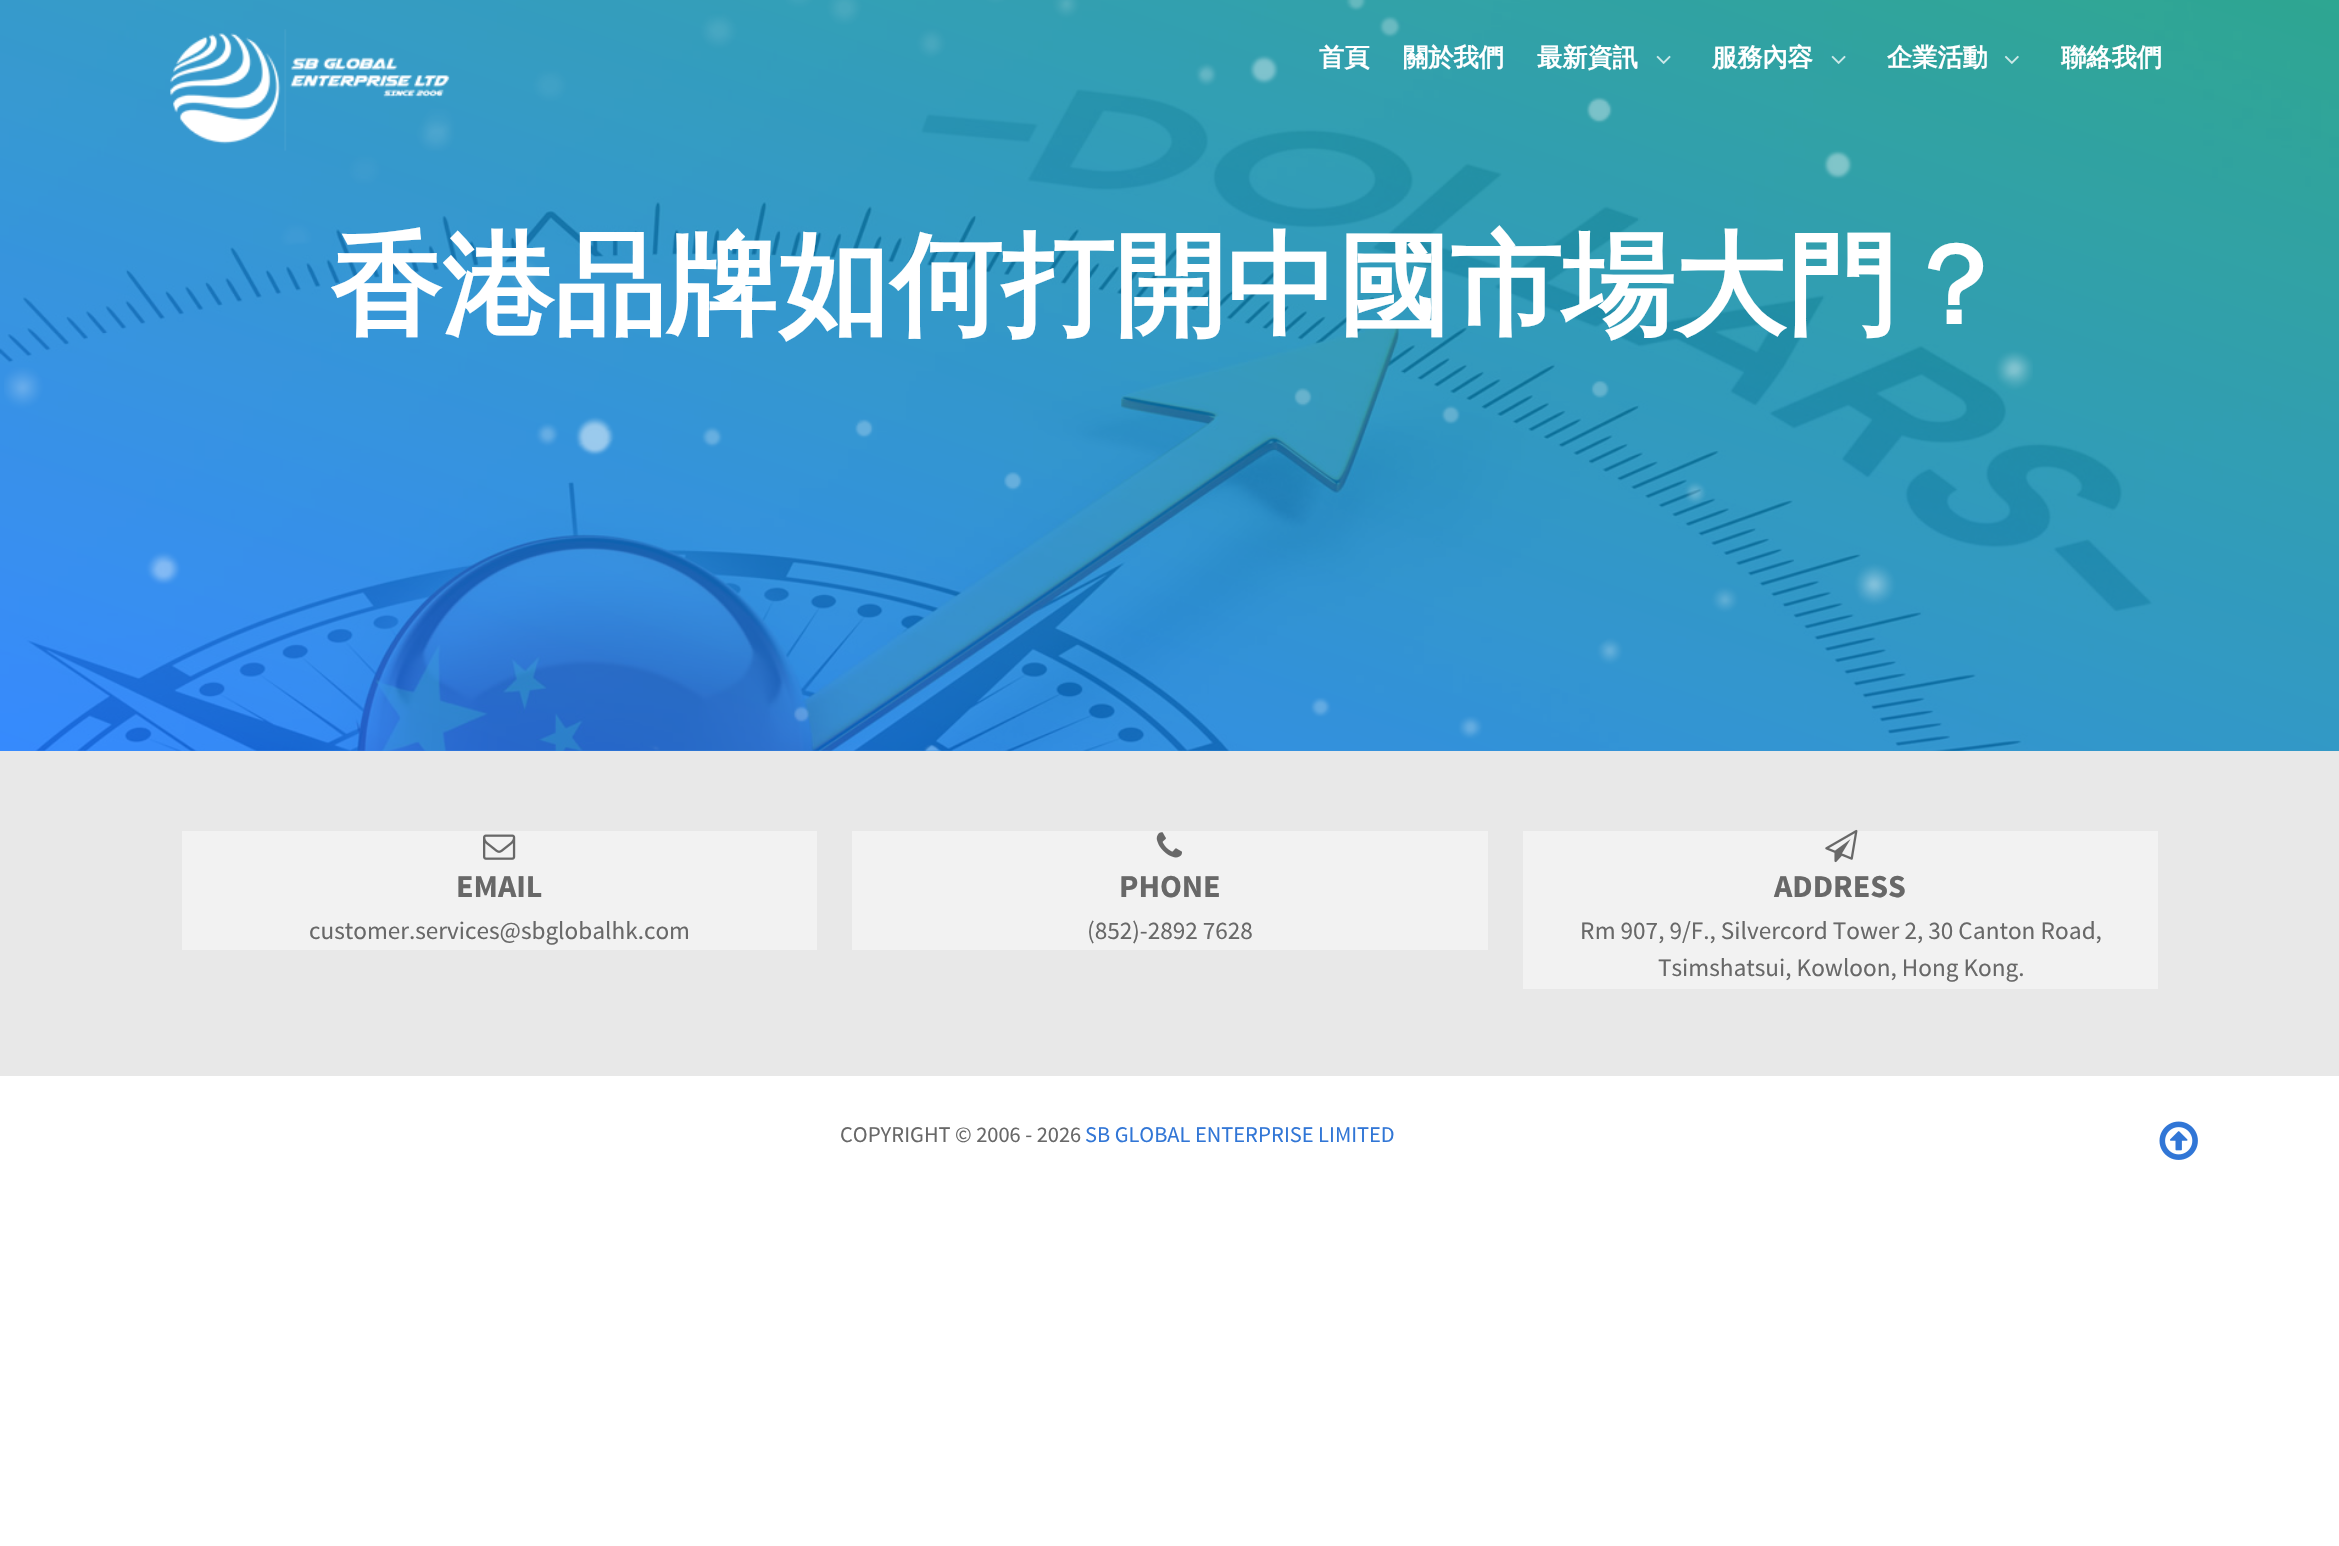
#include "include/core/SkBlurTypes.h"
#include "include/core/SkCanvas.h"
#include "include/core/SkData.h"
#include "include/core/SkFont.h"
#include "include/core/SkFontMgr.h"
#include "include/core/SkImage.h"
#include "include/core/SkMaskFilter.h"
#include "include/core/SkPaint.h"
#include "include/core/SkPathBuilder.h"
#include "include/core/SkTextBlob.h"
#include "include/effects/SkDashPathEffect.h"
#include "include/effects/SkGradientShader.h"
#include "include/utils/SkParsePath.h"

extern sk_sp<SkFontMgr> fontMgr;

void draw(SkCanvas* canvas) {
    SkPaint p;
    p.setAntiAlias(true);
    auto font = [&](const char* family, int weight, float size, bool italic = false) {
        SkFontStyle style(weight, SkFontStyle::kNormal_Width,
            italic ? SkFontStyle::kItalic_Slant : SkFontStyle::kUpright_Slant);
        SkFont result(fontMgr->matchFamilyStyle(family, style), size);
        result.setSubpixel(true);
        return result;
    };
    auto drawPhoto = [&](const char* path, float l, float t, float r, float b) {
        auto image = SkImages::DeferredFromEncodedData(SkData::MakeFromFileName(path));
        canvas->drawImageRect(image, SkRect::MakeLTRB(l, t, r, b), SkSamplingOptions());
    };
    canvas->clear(0xFFFFFFFF);
    drawPhoto("media/5.png", 0, 0, 2339, 751);
    {
        const SkColor colors[] = {0xCC086FFF, 0xCC009675};
        const float stops[] = {0, 1};
        const SkPoint ends[] = {{926, 1067}, {1414, -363}};
        p.setShader(SkGradientShader::MakeLinear(ends, colors, stops, 2, SkTileMode::kClamp));
        p.setAlpha(255);
    }
    canvas->drawRect(SkRect::MakeLTRB(0, 0, 2339, 751), p);
    drawPhoto("media/6.png", 4, 0, 2033, 751);
    drawPhoto("media/1.png", 170, 29, 450, 151);
    auto font1 = font("WenQuanYi Zen Hei", 700, 25.2f);
    p.setShader(nullptr);
    p.setColor(0xFFFFFFFF);
    {
        const struct { const char* s; float x, y; } items[] = {
            {"首頁", 1319, 66},
            {"關於我們", 1403, 66},
            {"最新資訊", 1537, 66},
        };
        for (auto [s, x, y] : items) {
            canvas->drawString(s, x, y, font1, p);
        }
    }
    drawPhoto("media/2.png", 1656, 55, 1671, 64);
    canvas->drawString("服務內容", 1712, 66, font1, p);
    drawPhoto("media/3.png", 1831, 55, 1846, 64);
    canvas->drawString("企業活動", 1887, 66, font1, p);
    drawPhoto("media/4.png", 2004, 55, 2019, 64);
    canvas->drawString("聯絡我們", 2061, 66, font1, p);
    auto font2 = font("WenQuanYi Zen Hei", 700, 112);
    canvas->drawString("香港品牌如何打開中國市場大門？", 330, 324, font2, p);
    p.setColor(0xFFE8E8E8);
    canvas->drawRect(SkRect::MakeLTRB(0, 751, 2339, 1076), p);
    p.setColor(0xFFF2F2F2);
    canvas->drawRect(SkRect::MakeLTRB(182, 831, 817, 950), p);
    drawPhoto("media/7.png", 483, 834, 516, 860);
    auto font3 = font("Source Sans Pro", 700, 32);
    p.setColor(0xFF686868);
    canvas->drawString("EMAIL", 456, 897, font3, p);
    auto font4 = font("Source Sans Pro", 400, 25.2f);
    canvas->drawString("customer.services@sbglobalhk.com", 309, 939, font4, p);
    p.setColor(0xFFF2F2F2);
    canvas->drawRect(SkRect::MakeLTRB(852, 831, 1488, 950), p);
    drawPhoto("media/8.png", 1156, 832, 1182, 858);
    p.setColor(0xFF686868);
    canvas->drawString("PHONE", 1119, 897, font3, p);
    canvas->drawString("(852)-2892 7628", 1087, 939, font4, p);
    p.setColor(0xFFF2F2F2);
    canvas->drawRect(SkRect::MakeLTRB(1523, 831, 2158, 989), p);
    drawPhoto("media/9.png", 1825, 829, 1858, 863);
    p.setColor(0xFF686868);
    canvas->drawString("ADDRESS", 1774, 897, font3, p);
    canvas->drawString("Rm 907, 9/F., Silvercord Tower 2, 30 Canton Road,", 1580, 939, font4, p);
    canvas->drawString("Tsimshatsui, Kowloon, Hong Kong.", 1658, 976, font4, p);
    auto font5 = font("Source Sans Pro", 400, 22.4f);
    canvas->drawString("COPYRIGHT © 2006 - 2026", 840, 1142, font5, p);
    p.setColor(0xFF3176D6);
    canvas->drawString("SB GLOBAL ENTERPRISE LIMITED", 1085, 1142, font5, p);
    drawPhoto("media/10.png", 2159, 1121, 2198, 1160);
}
